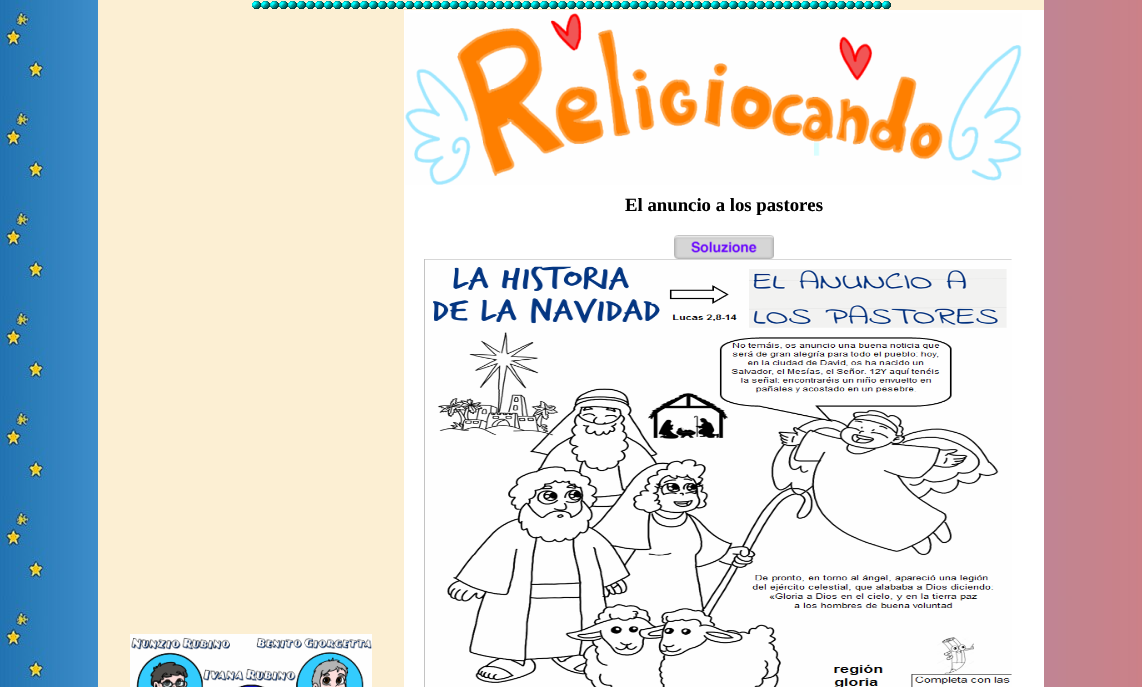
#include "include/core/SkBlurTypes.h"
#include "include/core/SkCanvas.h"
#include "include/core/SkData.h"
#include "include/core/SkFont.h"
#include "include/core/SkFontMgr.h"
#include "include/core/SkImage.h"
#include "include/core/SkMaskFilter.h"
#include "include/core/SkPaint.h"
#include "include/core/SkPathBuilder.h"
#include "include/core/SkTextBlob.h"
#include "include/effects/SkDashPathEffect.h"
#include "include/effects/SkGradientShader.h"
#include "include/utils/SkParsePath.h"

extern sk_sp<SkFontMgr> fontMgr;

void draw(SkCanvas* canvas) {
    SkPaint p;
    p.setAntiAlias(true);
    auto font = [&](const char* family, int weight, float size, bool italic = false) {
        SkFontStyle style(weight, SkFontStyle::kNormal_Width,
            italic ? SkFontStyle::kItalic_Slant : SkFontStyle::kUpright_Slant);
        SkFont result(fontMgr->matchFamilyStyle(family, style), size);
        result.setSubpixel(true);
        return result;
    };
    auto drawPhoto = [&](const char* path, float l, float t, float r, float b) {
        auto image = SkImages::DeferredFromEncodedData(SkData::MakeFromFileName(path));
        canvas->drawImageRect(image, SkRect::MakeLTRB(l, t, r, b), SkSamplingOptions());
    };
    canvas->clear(0xFFFFFFFF);
    drawPhoto("media/1.png", 0, 0, 1142, 687);
    p.setColor(0xFFFCEFD3);
    canvas->drawRect(SkRect::MakeLTRB(98, 0, 1044, 687), p);
    drawPhoto("media/2.png", 252, 1, 891, 9);
    p.setColor(0xFFFFFFFF);
    canvas->drawRect(SkRect::MakeLTRB(404, 10, 1044, 687), p);
    drawPhoto("media/3.png", 405, 13, 1022, 185);
    auto font1 = font("Liberation Serif", 700, 18.75f);
    p.setColor(0xFF000000);
    canvas->drawString("El anuncio a los pastores", 625, 211, font1, p);
    drawPhoto("media/4.png", 674, 235, 774, 259);
    drawPhoto("media/5.png", 424, 259, 1012, 687);
    drawPhoto("media/6.png", 130, 634, 372, 687);
}
